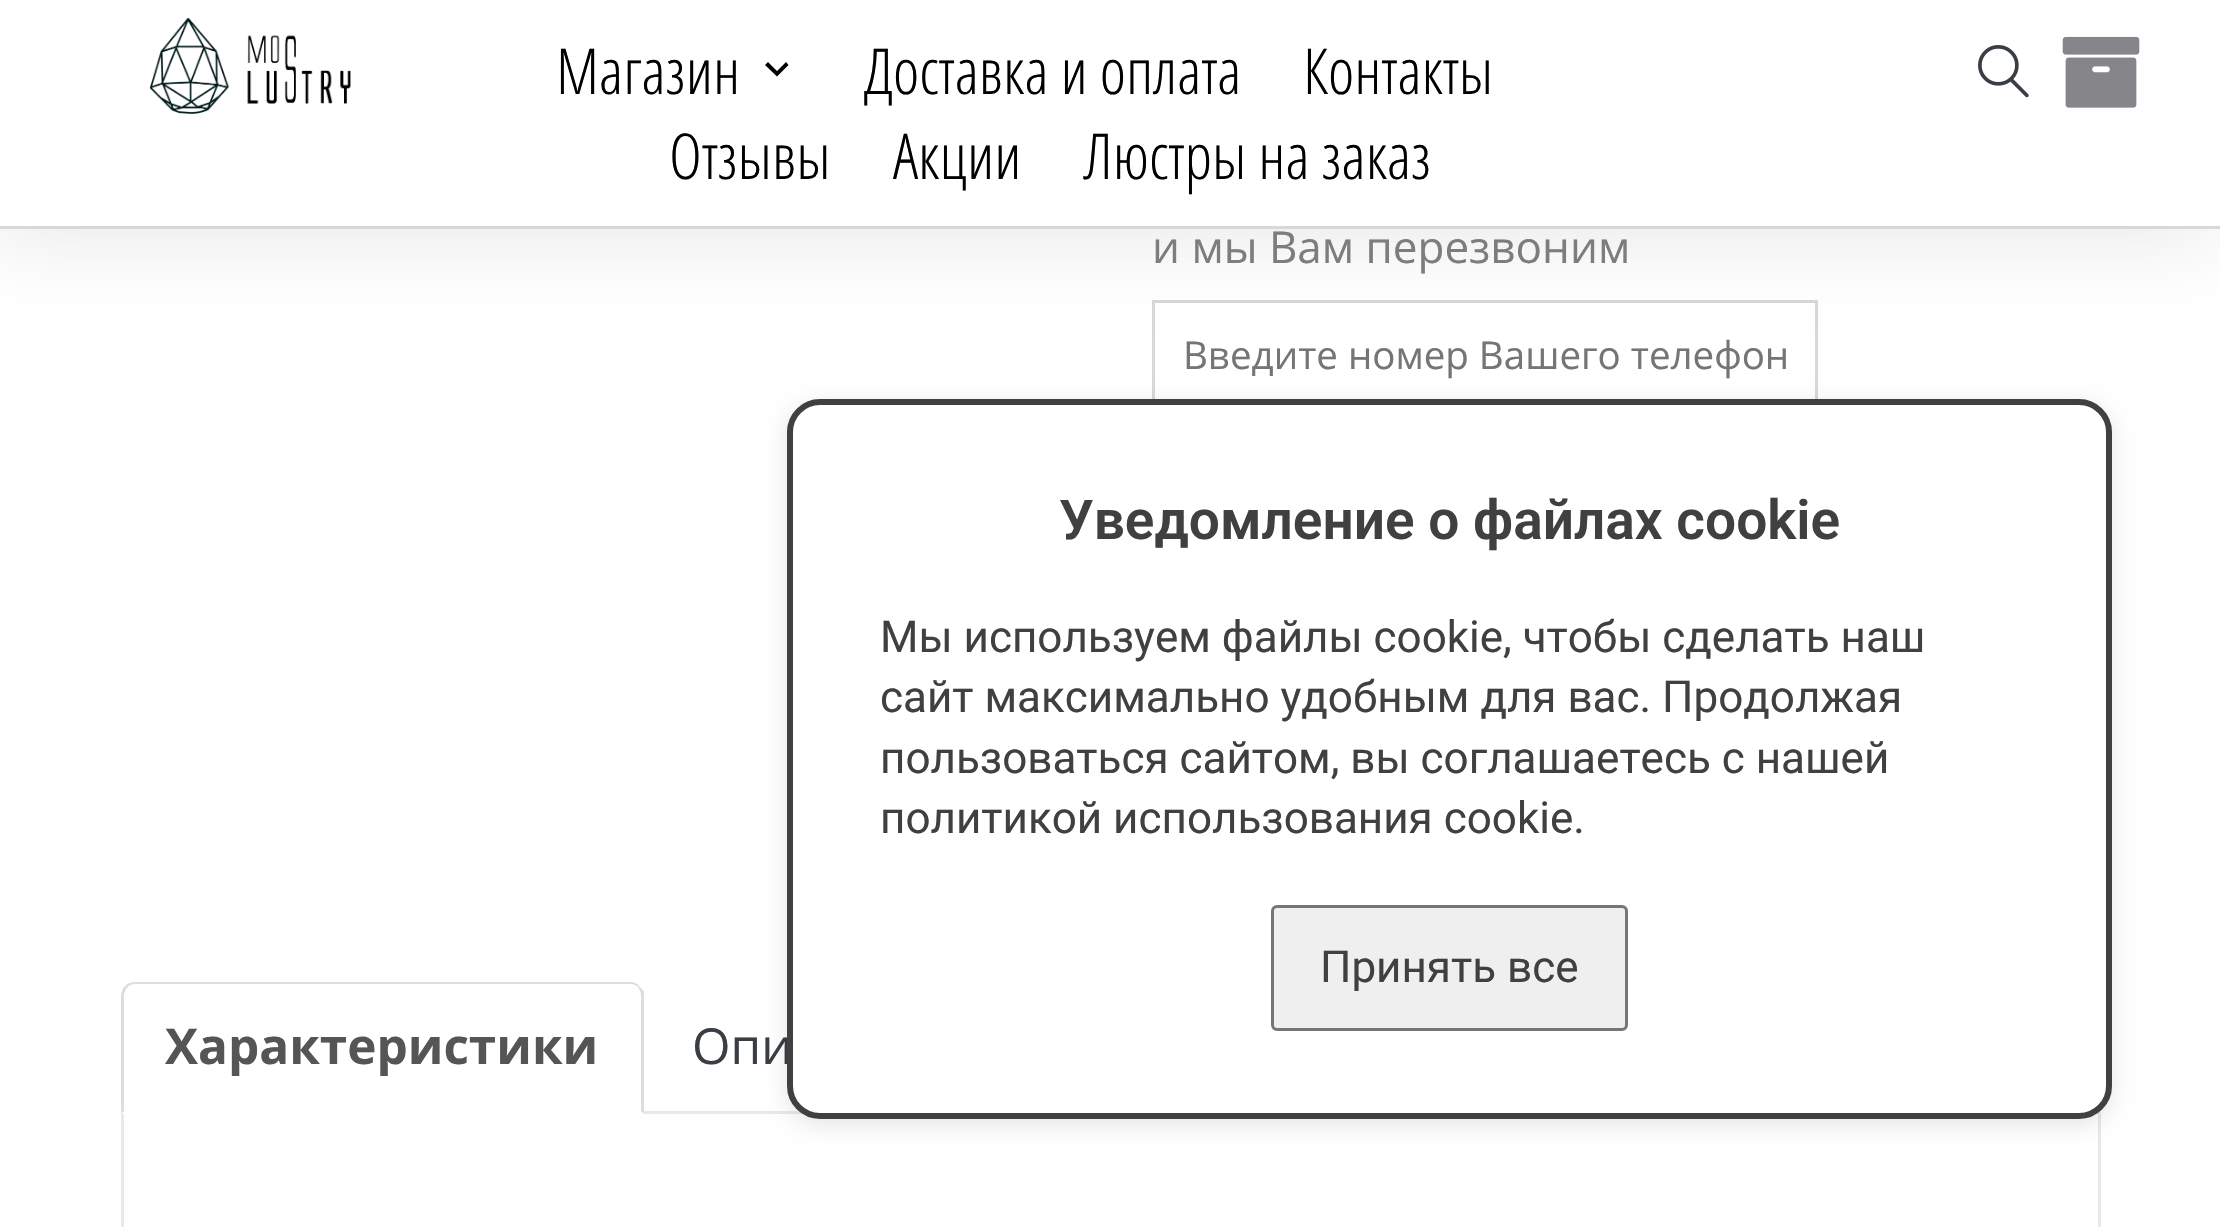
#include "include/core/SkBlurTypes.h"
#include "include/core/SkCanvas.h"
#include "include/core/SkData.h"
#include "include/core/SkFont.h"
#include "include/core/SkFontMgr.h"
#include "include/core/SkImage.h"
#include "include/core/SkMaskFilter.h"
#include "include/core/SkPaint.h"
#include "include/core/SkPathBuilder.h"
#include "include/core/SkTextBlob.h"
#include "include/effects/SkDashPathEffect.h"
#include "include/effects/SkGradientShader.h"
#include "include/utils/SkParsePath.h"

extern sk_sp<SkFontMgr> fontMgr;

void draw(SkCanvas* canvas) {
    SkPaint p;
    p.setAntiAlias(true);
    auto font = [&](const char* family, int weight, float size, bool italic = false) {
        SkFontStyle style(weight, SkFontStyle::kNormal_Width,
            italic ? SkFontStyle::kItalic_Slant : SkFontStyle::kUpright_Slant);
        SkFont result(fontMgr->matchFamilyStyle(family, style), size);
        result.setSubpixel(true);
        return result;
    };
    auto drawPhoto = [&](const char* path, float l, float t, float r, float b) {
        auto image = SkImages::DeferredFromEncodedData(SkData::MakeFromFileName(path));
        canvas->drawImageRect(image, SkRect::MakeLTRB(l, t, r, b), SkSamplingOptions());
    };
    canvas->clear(0xFFFFFFFF);
    p.setStyle(SkPaint::kStroke_Style);
    p.setStrokeWidth(3);
    p.setColor(0xFFD7D8DA);
    canvas->drawRect(SkRect::MakeLTRB(1153.5f, 301.5f, 1816.5f, 408.5f), p);
    p.setStyle(SkPaint::kFill_Style);
    p.setColor(0x17000000);
    p.setMaskFilter(SkMaskFilter::MakeBlur(kNormal_SkBlurStyle, 41));
    canvas->drawRect(SkRect::MakeLTRB(-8, 8, 2214, 237), p);
    p.setMaskFilter(nullptr);
    p.setColor(0xFFFFFFFF);
    canvas->drawRect(SkRect::MakeLTRB(0, 0, 2220, 226), p);
    p.setColor(0xFFD7D8DA);
    canvas->drawRect(SkRect::MakeLTRB(0, 226, 2220, 229), p);
    drawPhoto("media/1.png", 149, 17, 351, 114);
    auto font1 = font("Open Sans Condensed", 300, 63.25f);
    p.setColor(0xFF000000);
    canvas->drawString("Магазин", 556, 94, font1, p);
    canvas->drawPath(SkPathBuilder().moveTo(786, 62).lineTo(788.5f, 65).lineTo(777, 76.5f).lineTo(765, 65).lineTo(768, 62).lineTo(777, 71).close().detach(), p);
    {
        const struct { const char* s; float x, y; } items[] = {
            {"Доставка и оплата", 864, 94},
            {"Контакты", 1303, 94},
            {"Отзывы", 669, 179},
            {"Акции", 893, 179},
            {"Люстры на заказ", 1084, 179},
        };
        for (auto [s, x, y] : items) {
            canvas->drawString(s, x, y, font1, p);
        }
    }
    drawPhoto("media/2.png", 1978, 45, 2029, 98);
    drawPhoto("media/3.png", 2062, 36, 2140, 108);
    auto font2 = font("Open Sans", 400, 44);
    p.setColor(0xFF7D7D7D);
    canvas->drawString("и мы Вам перезвоним", 1152, 263, font2, p);
    auto font3 = font("Open Sans", 400, 38.5f);
    p.setColor(0xFF757575);
    canvas->drawString("Введите номер Вашего телефон", 1183, 369, font3, p);
    p.setStyle(SkPaint::kStroke_Style);
    p.setColor(0xFFE9E9E9);
    canvas->drawRect(SkRect::MakeLTRB(122.5f, 1112.5f, 2099.5f, 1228.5f), p);
    p.setStyle(SkPaint::kFill_Style);
    p.setColor(0xFFFFFFFF);
    canvas->drawPath(SkPathBuilder().moveTo(135, 982).lineTo(630, 982).cubicTo(637.5f, 982, 644, 988.5f, 644, 996).lineTo(644, 1114).lineTo(121, 1114).lineTo(121, 996).cubicTo(121, 988.5f, 127.5f, 982, 135, 982).close().detach(), p);
    p.setColor(0xFFDDDDDD);
    canvas->drawPath(SkPathBuilder().moveTo(135, 982).cubicTo(131, 982, 128, 983, 125, 986).lineTo(127, 988).cubicTo(129, 985, 132, 984, 135, 984).lineTo(630, 984).cubicTo(633, 984, 636, 985, 638, 987).lineTo(639, 986).cubicTo(637, 983, 633, 982, 630, 982).close().detach(), p);
    canvas->drawPath(SkPathBuilder().moveTo(639, 986).cubicTo(641, 988, 643, 990, 644, 992).lineTo(644, 1114).lineTo(641, 1111).lineTo(641, 996).cubicTo(641, 993, 640, 990, 638, 987).close().detach(), p);
    canvas->drawPath(SkPathBuilder().moveTo(121, 1114).lineTo(124, 1111).lineTo(124, 996).cubicTo(124, 993, 125, 990, 127, 988).lineTo(125, 986).cubicTo(123, 988, 121, 992, 121, 996).close().detach(), p);
    auto font4 = font("Open Sans", 700, 49.5f);
    p.setColor(0xFF555555);
    canvas->drawString("Характеристики", 165, 1064, font4, p);
    auto font5 = font("Open Sans", 400, 49.5f);
    p.setColor(0xFF393E45);
    canvas->drawString("Опи", 692, 1064, font5, p);
    p.setColor(0x1A000000);
    p.setMaskFilter(SkMaskFilter::MakeBlur(kNormal_SkBlurStyle, 11));
    canvas->drawRoundRect(SkRect::MakeLTRB(787, 404, 2112, 1125), 33, 33, p);
    p.setMaskFilter(nullptr);
    p.setColor(0xFFFFFFFF);
    canvas->drawRoundRect(SkRect::MakeLTRB(790, 402, 2109, 1116), 30, 30, p);
    p.setStyle(SkPaint::kStroke_Style);
    p.setStrokeWidth(6);
    p.setColor(0xFF404040);
    canvas->drawRoundRect(SkRect::MakeLTRB(790, 402, 2109, 1116), 30, 30, p);
    auto font6 = font("Roboto", 600, 55);
    p.setStyle(SkPaint::kFill_Style);
    canvas->drawString("Уведомление о файлах cookie", 1059, 539, font6, p);
    auto font7 = font("Roboto", 400, 44);
    {
        const struct { const char* s; float x, y; } items[] = {
            {"Мы используем файлы cookie, чтобы сделать наш", 880, 652},
            {"сайт максимально удобным для вас. Продолжая", 880, 712},
            {"пользоваться сайтом, вы соглашаетесь с нашей", 880, 773},
            {"политикой использования cookie.", 880, 833},
        };
        for (auto [s, x, y] : items) {
            canvas->drawString(s, x, y, font7, p);
        }
    }
    p.setColor(0xFFEFEFEF);
    canvas->drawRoundRect(SkRect::MakeLTRB(1272.5f, 906.5f, 1626.5f, 1029.5f), 4.5f, 4.5f, p);
    p.setStyle(SkPaint::kStroke_Style);
    p.setStrokeWidth(3);
    p.setColor(0xFF767676);
    canvas->drawRoundRect(SkRect::MakeLTRB(1272.5f, 906.5f, 1626.5f, 1029.5f), 4.5f, 4.5f, p);
    p.setStyle(SkPaint::kFill_Style);
    p.setColor(0xFF404040);
    canvas->drawString("Принять все", 1320, 982, font7, p);
}
